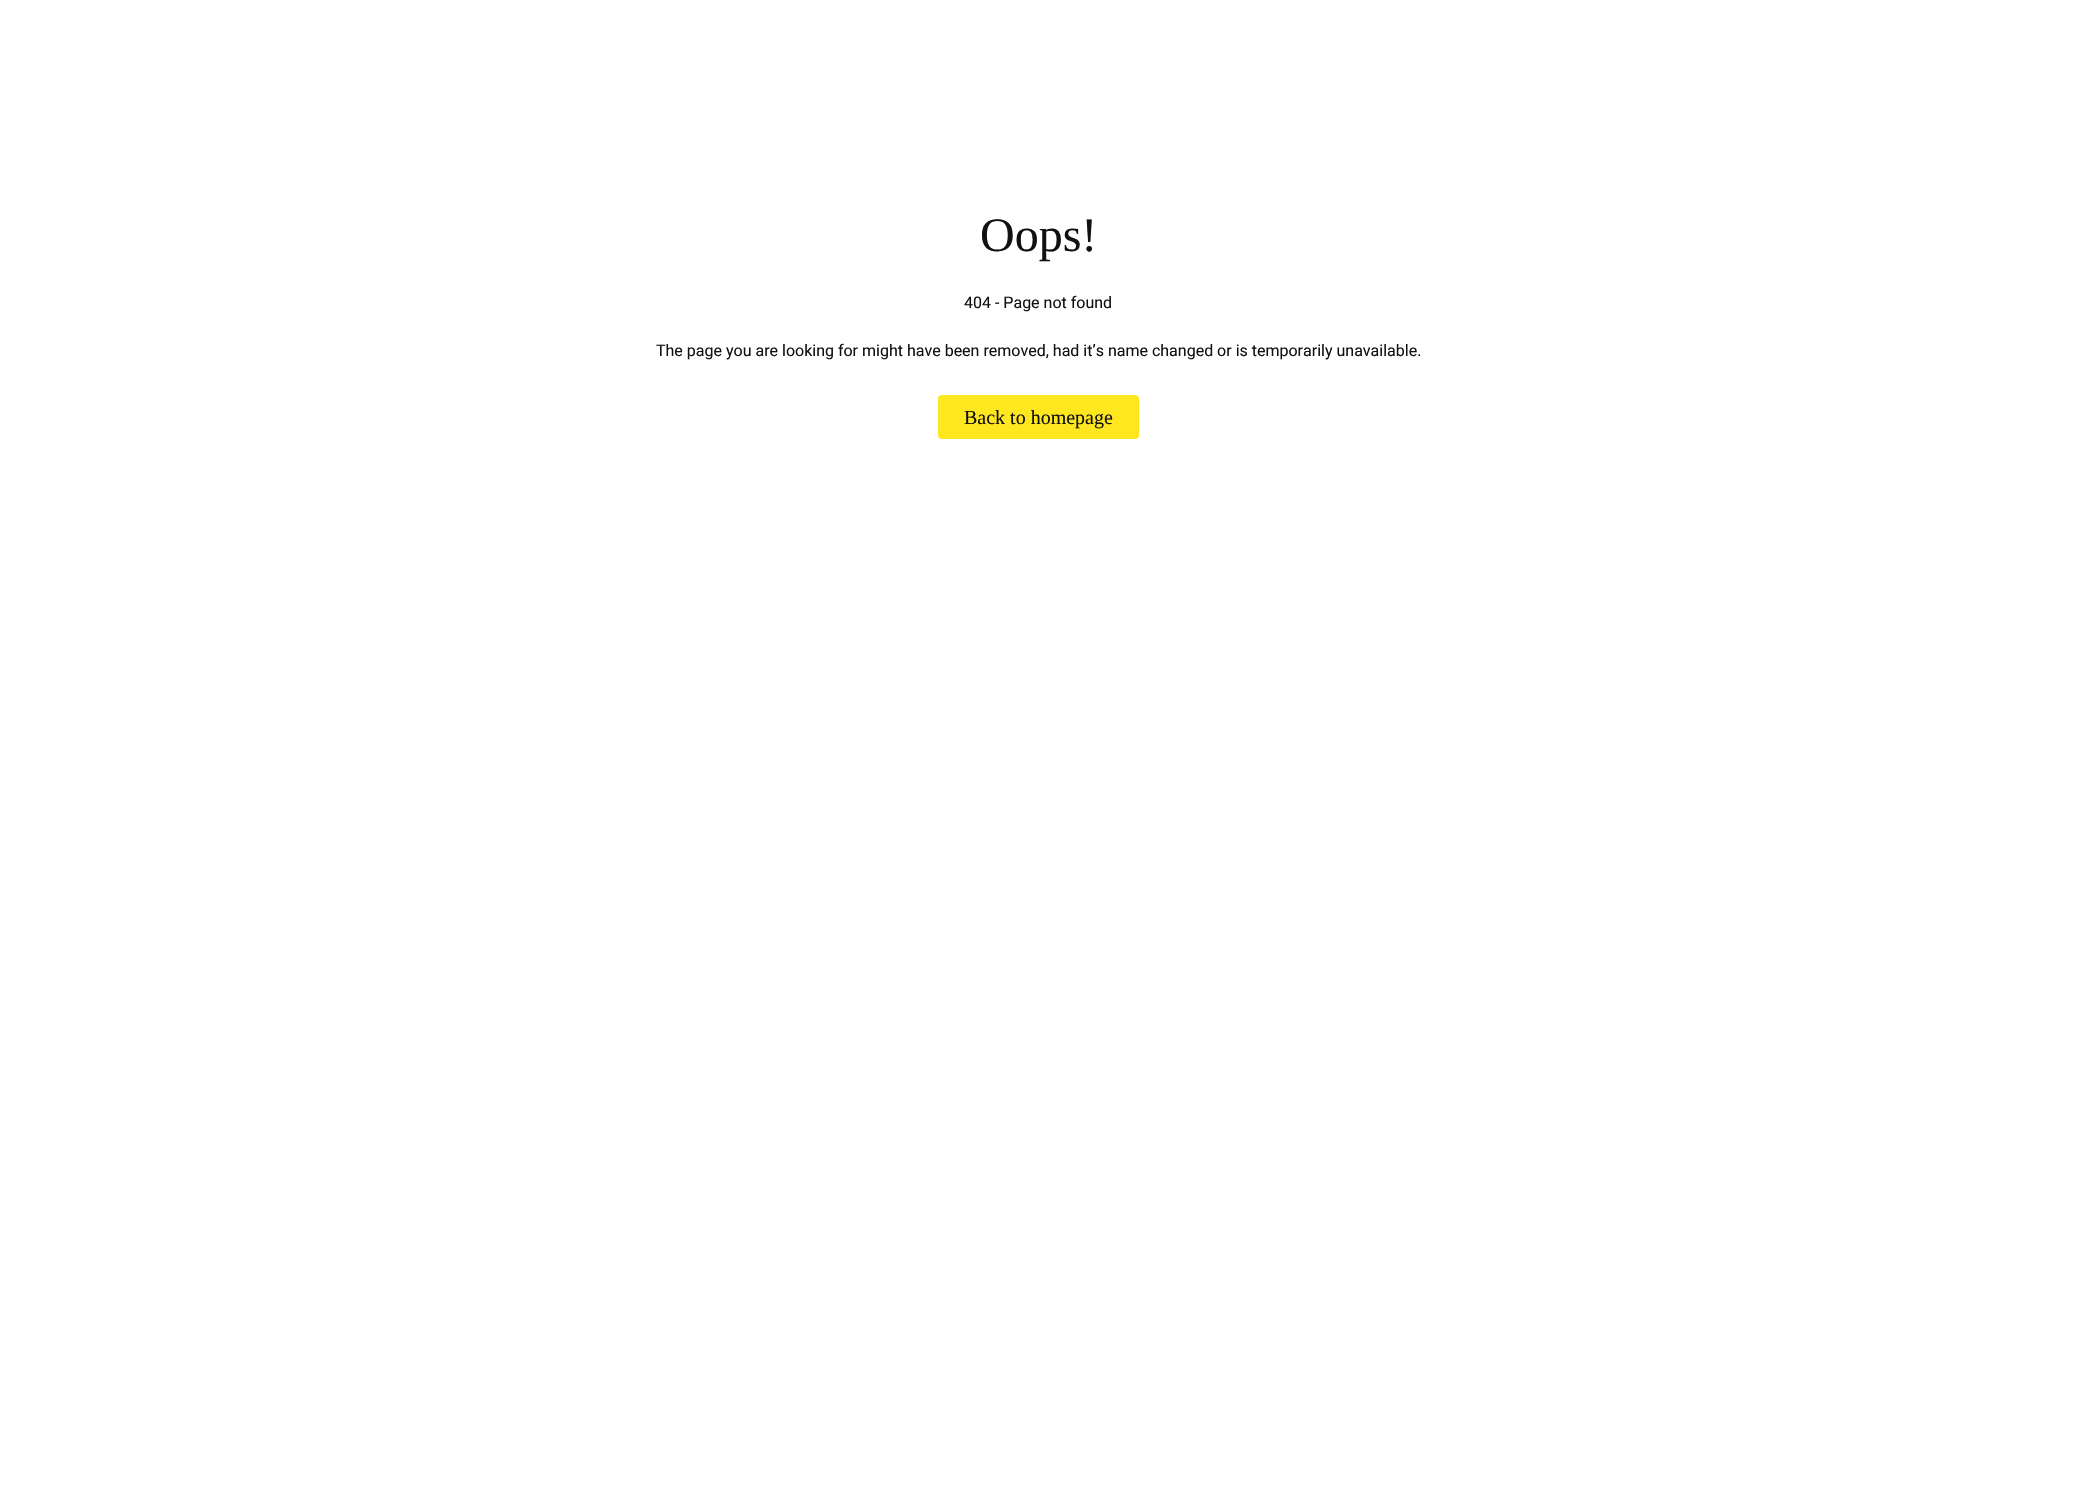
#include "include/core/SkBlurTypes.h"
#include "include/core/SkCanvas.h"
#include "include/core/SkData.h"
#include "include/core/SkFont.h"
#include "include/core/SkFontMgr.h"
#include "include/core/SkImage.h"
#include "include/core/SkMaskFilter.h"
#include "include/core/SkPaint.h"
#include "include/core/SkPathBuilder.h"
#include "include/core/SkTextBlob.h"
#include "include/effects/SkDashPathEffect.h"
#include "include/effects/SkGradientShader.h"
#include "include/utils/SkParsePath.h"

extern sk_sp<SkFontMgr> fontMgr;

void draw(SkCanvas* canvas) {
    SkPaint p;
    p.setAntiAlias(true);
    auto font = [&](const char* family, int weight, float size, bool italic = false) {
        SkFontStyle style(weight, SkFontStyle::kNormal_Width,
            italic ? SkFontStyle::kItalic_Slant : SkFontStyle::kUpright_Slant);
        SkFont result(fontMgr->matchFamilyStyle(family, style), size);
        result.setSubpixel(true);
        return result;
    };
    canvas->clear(0xFFFFFFFF);
    auto font1 = font("Liberation Serif", 400, 48);
    p.setColor(0xFF111111);
    canvas->drawString("Oops!", 980, 251, font1, p);
    auto font2 = font("Roboto", 400, 16);
    canvas->drawString("404 - Page not found", 964, 308, font2, p);
    canvas->drawString("The page you are looking for might have been removed, had it’s name changed or is temporarily unavailable.", 656, 356, font2, p);
    p.setColor(0xFFFFE71F);
    canvas->drawRoundRect(SkRect::MakeLTRB(939, 396, 1138, 438), 3, 3, p);
    p.setStyle(SkPaint::kStroke_Style);
    p.setStrokeWidth(2);
    canvas->drawRoundRect(SkRect::MakeLTRB(939, 396, 1138, 438), 3, 3, p);
    auto font3 = font("Liberation Serif", 400, 20);
    p.setStyle(SkPaint::kFill_Style);
    p.setColor(0xFF111111);
    canvas->drawString("Back to homepage", 964, 424, font3, p);
}
